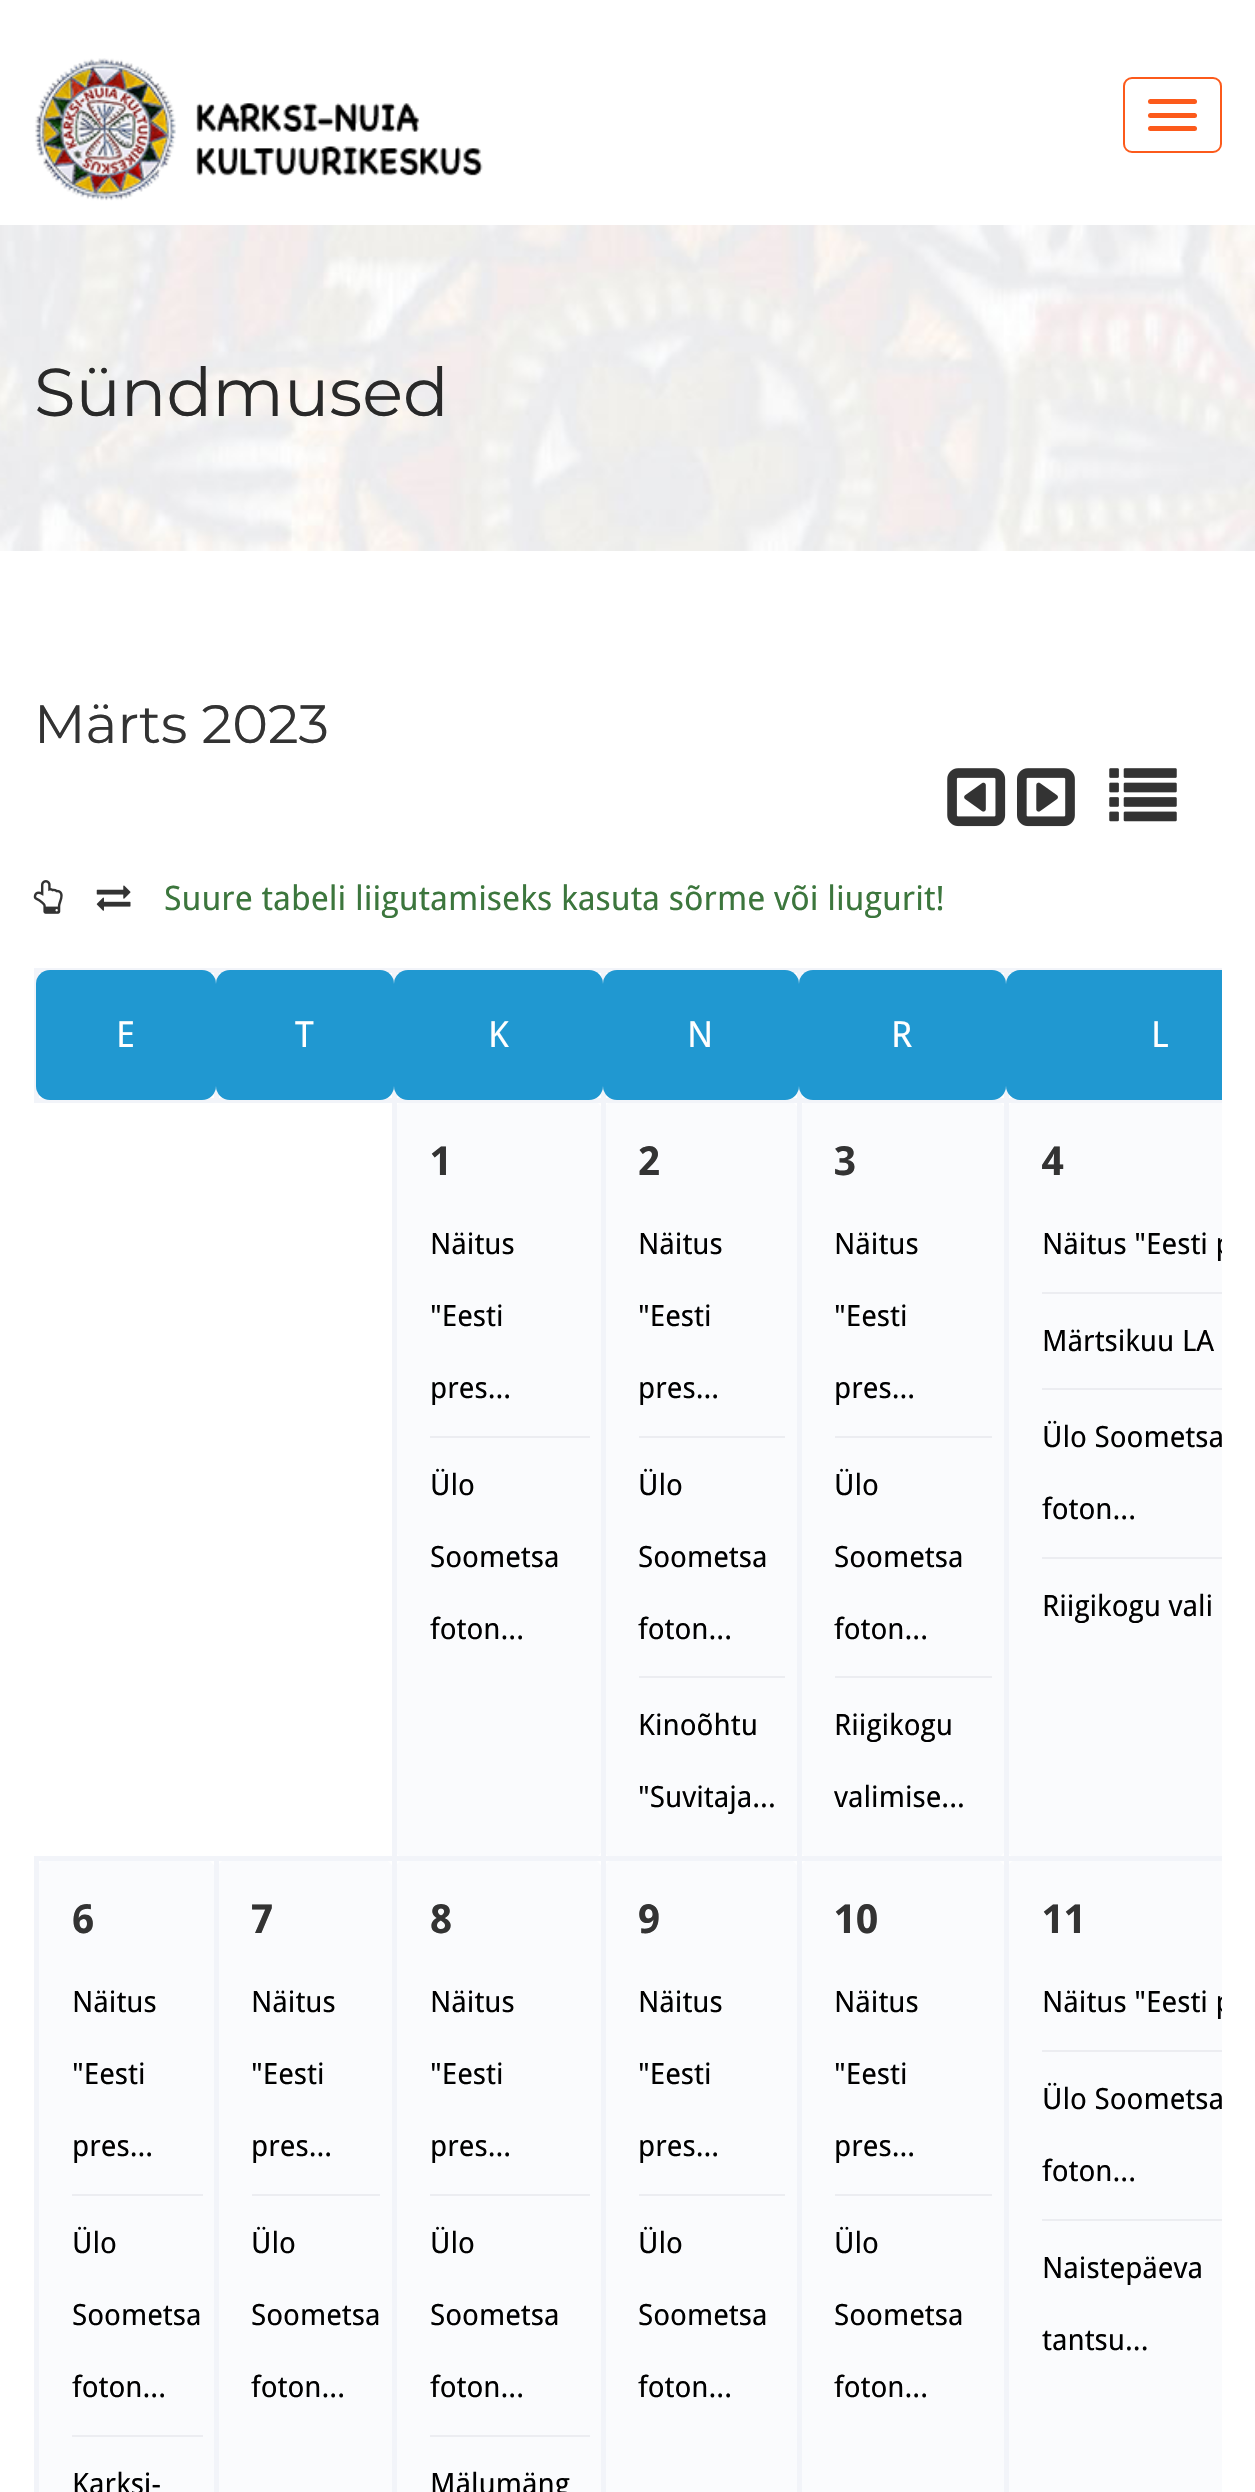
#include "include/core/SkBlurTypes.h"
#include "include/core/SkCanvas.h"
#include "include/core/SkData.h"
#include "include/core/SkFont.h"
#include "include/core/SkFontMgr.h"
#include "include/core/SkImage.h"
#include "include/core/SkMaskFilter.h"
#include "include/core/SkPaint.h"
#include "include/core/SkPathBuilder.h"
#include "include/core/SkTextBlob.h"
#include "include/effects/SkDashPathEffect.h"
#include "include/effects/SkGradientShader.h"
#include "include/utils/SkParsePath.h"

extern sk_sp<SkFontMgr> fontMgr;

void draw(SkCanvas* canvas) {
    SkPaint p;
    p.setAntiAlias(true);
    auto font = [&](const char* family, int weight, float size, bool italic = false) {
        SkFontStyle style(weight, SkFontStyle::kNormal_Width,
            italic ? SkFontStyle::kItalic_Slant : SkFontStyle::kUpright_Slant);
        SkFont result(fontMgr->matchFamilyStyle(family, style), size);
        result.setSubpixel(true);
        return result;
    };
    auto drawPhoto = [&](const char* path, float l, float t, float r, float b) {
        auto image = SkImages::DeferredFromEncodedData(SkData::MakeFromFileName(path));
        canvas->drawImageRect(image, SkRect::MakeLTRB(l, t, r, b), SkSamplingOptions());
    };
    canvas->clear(0xFFFFFFFF);
    drawPhoto("media/1.png", 35, 58, 483, 201);
    p.setStyle(SkPaint::kStroke_Style);
    p.setStrokeWidth(2);
    p.setColor(0xFFFC5A1B);
    canvas->drawRoundRect(SkRect::MakeLTRB(1124, 78, 1221, 152), 8, 8, p);
    p.setStyle(SkPaint::kFill_Style);
    canvas->drawRoundRect(SkRect::MakeLTRB(1148, 99, 1197, 104), 2.5f, 2.5f, p);
    canvas->drawRoundRect(SkRect::MakeLTRB(1148, 113, 1197, 118), 2.5f, 2.5f, p);
    canvas->drawRoundRect(SkRect::MakeLTRB(1148, 126, 1197, 131), 2.5f, 2.5f, p);
    drawPhoto("media/2.png", 0, 225, 1255, 551);
    auto font1 = font("Montserrat", 400, 67.5f);
    p.setColor(0xFF292929);
    canvas->drawString("Sündmused", 34, 416, font1, p);
    auto font2 = font("Montserrat", 400, 54);
    p.setColor(0xFF333333);
    canvas->drawString("Märts 2023", 34, 743, font2, p);
    drawPhoto("media/3.png", 947, 768, 1006, 827);
    drawPhoto("media/4.png", 1017, 768, 1075, 827);
    drawPhoto("media/5.png", 1109, 768, 1177, 822);
    drawPhoto("media/6.png", 33, 880, 63, 914);
    drawPhoto("media/7.png", 96, 885, 131, 911);
    auto font3 = font("Droid Sans", 400, 33.75f);
    p.setColor(0xFF3C763D);
    canvas->drawString("Suure tabeli liigutamiseks kasuta sõrme või liugurit!", 164, 910, font3, p);
    p.setColor(0xFFF2F4F9);
    canvas->drawRect(SkRect::MakeLTRB(1004, 968, 1222, 973), p);
    p.setColor(0xFFFAFBFD);
    canvas->drawRoundRect(SkRect::MakeLTRB(799, 1100, 1006, 1859), 14, 14, p);
    canvas->drawRoundRect(SkRect::MakeLTRB(603, 1100, 799, 1859), 14, 14, p);
    canvas->drawPath(SkPathBuilder().moveTo(1020, 1100).lineTo(1222, 1100).lineTo(1222, 1859).lineTo(1020, 1859).cubicTo(1012.5f, 1859, 1006, 1852.5f, 1006, 1845).lineTo(1006, 1114).cubicTo(1006, 1106.5f, 1012.5f, 1100, 1020, 1100).close().detach(), p);
    p.setColor(0xFFF2F4F9);
    canvas->drawRect(SkRect::MakeLTRB(1004, 1098, 1222, 1103), p);
    p.setColor(0xFFFAFBFD);
    canvas->drawRoundRect(SkRect::MakeLTRB(799, 1859, 1006, 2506), 14, 14, p);
    canvas->drawRoundRect(SkRect::MakeLTRB(603, 1859, 799, 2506), 14, 14, p);
    canvas->drawPath(SkPathBuilder().moveTo(1020, 1859).lineTo(1222, 1859).lineTo(1222, 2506).lineTo(1020, 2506).cubicTo(1012.5f, 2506, 1006, 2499.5f, 1006, 2492).lineTo(1006, 1873).cubicTo(1006, 1865.5f, 1012.5f, 1859, 1020, 1859).close().detach(), p);
    {
        const struct { float l, t, r, b; SkColor color; } items[] = {
            {1004, 1856, 1222, 1861, 0xFFF2F4F9},
            {1004, 1856, 1009, 2492, 0xFFF2F4F9},
            {797, 1856, 1008, 1861, 0xFFF2F4F9},
            {1004, 1098, 1009, 1861, 0xFFF2F4F9},
            {797, 1098, 1008, 1103, 0xFFF2F4F9},
            {1004, 968, 1009, 1103, 0xFFF2F4F9},
            {797, 968, 1008, 973, 0xFFF2F4F9},
        };
        for (auto [l, t, r, b, color] : items) {
            p.setColor(color);
            canvas->drawRect(SkRect::MakeLTRB(l, t, r, b), p);
        }
    }
    p.setColor(0xFFFAFBFD);
    canvas->drawRoundRect(SkRect::MakeLTRB(394, 1100, 603, 1859), 14, 14, p);
    canvas->drawRoundRect(SkRect::MakeLTRB(394, 1859, 603, 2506), 14, 14, p);
    {
        const struct { float l, t, r, b; SkColor color; } items[] = {
            {797, 1856, 802, 2492, 0xFFF2F4F9},
            {601, 1856, 801, 1861, 0xFFF2F4F9},
            {797, 1098, 802, 1861, 0xFFF2F4F9},
            {601, 1098, 801, 1103, 0xFFF2F4F9},
            {797, 968, 802, 1103, 0xFFF2F4F9},
            {601, 968, 801, 973, 0xFFF2F4F9},
        };
        for (auto [l, t, r, b, color] : items) {
            p.setColor(color);
            canvas->drawRect(SkRect::MakeLTRB(l, t, r, b), p);
        }
    }
    p.setColor(0xFFFAFBFD);
    canvas->drawRoundRect(SkRect::MakeLTRB(216, 1859, 394, 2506), 14, 14, p);
    {
        const struct { float l, t, r, b; SkColor color; } items[] = {
            {601, 1856, 606, 2492, 0xFFF2F4F9},
            {392, 1856, 605, 1861, 0xFFF2F4F9},
            {601, 1098, 606, 1861, 0xFFF2F4F9},
            {392, 1098, 605, 1103, 0xFFF2F4F9},
            {601, 968, 606, 1103, 0xFFF2F4F9},
            {392, 968, 605, 973, 0xFFF2F4F9},
        };
        for (auto [l, t, r, b, color] : items) {
            p.setColor(color);
            canvas->drawRect(SkRect::MakeLTRB(l, t, r, b), p);
        }
    }
    p.setColor(0xFFFAFBFD);
    canvas->drawRoundRect(SkRect::MakeLTRB(36, 1859, 216, 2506), 14, 14, p);
    {
        const struct { float l, t, r, b; SkColor color; } items[] = {
            {392, 1856, 397, 2492, 0xFFF2F4F9},
            {214, 1856, 396, 1861, 0xFFF2F4F9},
            {392, 1098, 397, 1861, 0xFFF2F4F9},
            {392, 968, 397, 1103, 0xFFF2F4F9},
            {214, 968, 396, 973, 0xFFF2F4F9},
            {214, 1098, 396, 1103, 0xFFF2F4F9},
            {214, 968, 219, 1103, 0xFFF2F4F9},
            {34, 968, 218, 973, 0xFFF2F4F9},
            {34, 1098, 218, 1103, 0xFFF2F4F9},
            {34, 968, 39, 1103, 0xFFF2F4F9},
        };
        for (auto [l, t, r, b, color] : items) {
            p.setColor(color);
            canvas->drawRect(SkRect::MakeLTRB(l, t, r, b), p);
        }
    }
    p.setColor(0xFF2098D1);
    canvas->drawRoundRect(SkRect::MakeLTRB(36, 970, 216, 1100), 14, 14, p);
    auto font4 = font("Droid Sans", 400, 36);
    p.setColor(0xFFFFFFFF);
    canvas->drawString("E", 116, 1047, font4, p);
    p.setColor(0xFF2098D1);
    canvas->drawRoundRect(SkRect::MakeLTRB(216, 970, 394, 1100), 14, 14, p);
    p.setColor(0xFFFFFFFF);
    canvas->drawString("T", 295, 1047, font4, p);
    p.setColor(0xFF2098D1);
    canvas->drawRoundRect(SkRect::MakeLTRB(394, 970, 603, 1100), 14, 14, p);
    p.setColor(0xFFFFFFFF);
    canvas->drawString("K", 488, 1047, font4, p);
    p.setColor(0xFF2098D1);
    canvas->drawRoundRect(SkRect::MakeLTRB(603, 970, 799, 1100), 14, 14, p);
    p.setColor(0xFFFFFFFF);
    canvas->drawString("N", 687, 1047, font4, p);
    p.setColor(0xFF2098D1);
    canvas->drawRoundRect(SkRect::MakeLTRB(799, 970, 1006, 1100), 14, 14, p);
    p.setColor(0xFFFFFFFF);
    canvas->drawString("R", 891, 1047, font4, p);
    p.setColor(0xFF2098D1);
    canvas->drawPath(SkPathBuilder().moveTo(1020, 970).lineTo(1222, 970).lineTo(1222, 1100).lineTo(1020, 1100).cubicTo(1012.5f, 1100, 1006, 1093.5f, 1006, 1086).lineTo(1006, 984).cubicTo(1006, 976.5f, 1012.5f, 970, 1020, 970).close().detach(), p);
    p.setColor(0xFFFFFFFF);
    canvas->drawString("L", 1151, 1047, font4, p);
    auto font5 = font("Droid Sans", 700, 40);
    p.setColor(0xFF333333);
    canvas->drawString("1", 430, 1175, font5, p);
    p.setColor(0xFFECEDF1);
    canvas->drawRect(SkRect::MakeLTRB(430, 1436, 590, 1438), p);
    auto font6 = font("Droid Sans", 400, 29.25f);
    p.setColor(0xFF000000);
    {
        const struct { const char* s; float x, y; } items[] = {
            {"Näitus", 430, 1254},
            {"\"Eesti", 430, 1326},
            {"pres...", 430, 1398},
            {"Ülo", 430, 1495},
            {"Soometsa", 430, 1567},
            {"foton...", 430, 1639},
        };
        for (auto [s, x, y] : items) {
            canvas->drawString(s, x, y, font6, p);
        }
    }
    p.setColor(0xFF333333);
    canvas->drawString("2", 638, 1175, font5, p);
    p.setColor(0xFFECEDF1);
    canvas->drawRect(SkRect::MakeLTRB(639, 1436, 785, 1438), p);
    p.setColor(0xFF000000);
    {
        const struct { const char* s; float x, y; } items[] = {
            {"Näitus", 638, 1254},
            {"\"Eesti", 638, 1326},
            {"pres...", 638, 1398},
        };
        for (auto [s, x, y] : items) {
            canvas->drawString(s, x, y, font6, p);
        }
    }
    p.setColor(0xFFECEDF1);
    canvas->drawRect(SkRect::MakeLTRB(639, 1676, 785, 1678), p);
    p.setColor(0xFF000000);
    {
        const struct { const char* s; float x, y; } items[] = {
            {"Ülo", 638, 1495},
            {"Soometsa", 638, 1567},
            {"foton...", 638, 1639},
            {"Kinoõhtu", 638, 1735},
            {"\"Suvitaja...", 638, 1807},
        };
        for (auto [s, x, y] : items) {
            canvas->drawString(s, x, y, font6, p);
        }
    }
    p.setColor(0xFF333333);
    canvas->drawString("3", 834, 1175, font5, p);
    p.setColor(0xFFECEDF1);
    canvas->drawRect(SkRect::MakeLTRB(835, 1436, 992, 1438), p);
    p.setColor(0xFF000000);
    {
        const struct { const char* s; float x, y; } items[] = {
            {"Näitus", 834, 1254},
            {"\"Eesti", 834, 1326},
            {"pres...", 834, 1398},
        };
        for (auto [s, x, y] : items) {
            canvas->drawString(s, x, y, font6, p);
        }
    }
    p.setColor(0xFFECEDF1);
    canvas->drawRect(SkRect::MakeLTRB(835, 1676, 992, 1678), p);
    p.setColor(0xFF000000);
    {
        const struct { const char* s; float x, y; } items[] = {
            {"Ülo", 834, 1495},
            {"Soometsa", 834, 1567},
            {"foton...", 834, 1639},
            {"Riigikogu", 834, 1735},
            {"valimise...", 834, 1807},
        };
        for (auto [s, x, y] : items) {
            canvas->drawString(s, x, y, font6, p);
        }
    }
    p.setColor(0xFF333333);
    canvas->drawString("4", 1042, 1175, font5, p);
    p.setColor(0xFFECEDF1);
    canvas->drawRect(SkRect::MakeLTRB(1042, 1292, 1222, 1294), p);
    canvas->save();
    canvas->clipRect(SkRect::MakeLTRB(34, 934, 1222, 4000));
    p.setColor(0xFF000000);
    canvas->drawString("Näitus \"Eesti p", 1042, 1254, font6, p);
    canvas->restore();
    p.setColor(0xFFECEDF1);
    canvas->drawRect(SkRect::MakeLTRB(1042, 1388, 1222, 1390), p);
    p.setColor(0xFF000000);
    canvas->drawString("Märtsikuu LA", 1042, 1351, font6, p);
    p.setColor(0xFFECEDF1);
    canvas->drawRect(SkRect::MakeLTRB(1042, 1557, 1222, 1559), p);
    p.setColor(0xFF000000);
    {
        const struct { const char* s; float x, y; } items[] = {
            {"Ülo Soometsa", 1042, 1447},
            {"foton...", 1042, 1519},
            {"Riigikogu vali", 1042, 1616},
        };
        for (auto [s, x, y] : items) {
            canvas->drawString(s, x, y, font6, p);
        }
    }
    {
        const struct { float l, t, r, b; SkColor color; } items[] = {
            {214, 1856, 219, 2492, 0xFFF2F4F9},
            {34, 1856, 218, 1861, 0xFFF2F4F9},
            {34, 1856, 39, 2492, 0xFFF2F4F9},
        };
        for (auto [l, t, r, b, color] : items) {
            p.setColor(color);
            canvas->drawRect(SkRect::MakeLTRB(l, t, r, b), p);
        }
    }
    p.setColor(0xFF333333);
    canvas->drawString("6", 72, 1933, font5, p);
    p.setColor(0xFFECEDF1);
    canvas->drawRect(SkRect::MakeLTRB(72, 2194, 203, 2196), p);
    p.setColor(0xFF000000);
    {
        const struct { const char* s; float x, y; } items[] = {
            {"Näitus", 72, 2012},
            {"\"Eesti", 72, 2084},
            {"pres...", 72, 2156},
        };
        for (auto [s, x, y] : items) {
            canvas->drawString(s, x, y, font6, p);
        }
    }
    p.setColor(0xFFECEDF1);
    canvas->drawRect(SkRect::MakeLTRB(72, 2435, 203, 2437), p);
    p.setColor(0xFF000000);
    {
        const struct { const char* s; float x, y; } items[] = {
            {"Ülo", 72, 2253},
            {"Soometsa", 72, 2325},
            {"foton...", 72, 2397},
            {"Karksi-", 72, 2494},
        };
        for (auto [s, x, y] : items) {
            canvas->drawString(s, x, y, font6, p);
        }
    }
    p.setColor(0xFF333333);
    canvas->drawString("7", 251, 1933, font5, p);
    p.setColor(0xFFECEDF1);
    canvas->drawRect(SkRect::MakeLTRB(252, 2194, 380, 2196), p);
    p.setColor(0xFF000000);
    {
        const struct { const char* s; float x, y; } items[] = {
            {"Näitus", 251, 2012},
            {"\"Eesti", 251, 2084},
            {"pres...", 251, 2156},
            {"Ülo", 251, 2253},
            {"Soometsa", 251, 2325},
            {"foton...", 251, 2397},
        };
        for (auto [s, x, y] : items) {
            canvas->drawString(s, x, y, font6, p);
        }
    }
    p.setColor(0xFF333333);
    canvas->drawString("8", 430, 1933, font5, p);
    p.setColor(0xFFECEDF1);
    canvas->drawRect(SkRect::MakeLTRB(430, 2194, 590, 2196), p);
    p.setColor(0xFF000000);
    {
        const struct { const char* s; float x, y; } items[] = {
            {"Näitus", 430, 2012},
            {"\"Eesti", 430, 2084},
            {"pres...", 430, 2156},
        };
        for (auto [s, x, y] : items) {
            canvas->drawString(s, x, y, font6, p);
        }
    }
    p.setColor(0xFFECEDF1);
    canvas->drawRect(SkRect::MakeLTRB(430, 2435, 590, 2437), p);
    p.setColor(0xFF000000);
    {
        const struct { const char* s; float x, y; } items[] = {
            {"Ülo", 430, 2253},
            {"Soometsa", 430, 2325},
            {"foton...", 430, 2397},
            {"Mälumäng", 430, 2494},
        };
        for (auto [s, x, y] : items) {
            canvas->drawString(s, x, y, font6, p);
        }
    }
    p.setColor(0xFF333333);
    canvas->drawString("9", 638, 1933, font5, p);
    p.setColor(0xFFECEDF1);
    canvas->drawRect(SkRect::MakeLTRB(639, 2194, 785, 2196), p);
    p.setColor(0xFF000000);
    {
        const struct { const char* s; float x, y; } items[] = {
            {"Näitus", 638, 2012},
            {"\"Eesti", 638, 2084},
            {"pres...", 638, 2156},
            {"Ülo", 638, 2253},
            {"Soometsa", 638, 2325},
            {"foton...", 638, 2397},
        };
        for (auto [s, x, y] : items) {
            canvas->drawString(s, x, y, font6, p);
        }
    }
    p.setColor(0xFF333333);
    canvas->drawString("10", 834, 1933, font5, p);
    p.setColor(0xFFECEDF1);
    canvas->drawRect(SkRect::MakeLTRB(835, 2194, 992, 2196), p);
    p.setColor(0xFF000000);
    {
        const struct { const char* s; float x, y; } items[] = {
            {"Näitus", 834, 2012},
            {"\"Eesti", 834, 2084},
            {"pres...", 834, 2156},
            {"Ülo", 834, 2253},
            {"Soometsa", 834, 2325},
            {"foton...", 834, 2397},
        };
        for (auto [s, x, y] : items) {
            canvas->drawString(s, x, y, font6, p);
        }
    }
    p.setColor(0xFF333333);
    canvas->drawString("11", 1042, 1933, font5, p);
    p.setColor(0xFFECEDF1);
    canvas->drawRect(SkRect::MakeLTRB(1042, 2050, 1222, 2052), p);
    canvas->save();
    canvas->clipRect(SkRect::MakeLTRB(34, 934, 1222, 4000));
    p.setColor(0xFF000000);
    canvas->drawString("Näitus \"Eesti p", 1042, 2012, font6, p);
    canvas->restore();
    p.setColor(0xFFECEDF1);
    canvas->drawRect(SkRect::MakeLTRB(1042, 2219, 1222, 2221), p);
    p.setColor(0xFF000000);
    {
        const struct { const char* s; float x, y; } items[] = {
            {"Ülo Soometsa", 1042, 2109},
            {"foton...", 1042, 2181},
            {"Naistepäeva", 1042, 2278},
            {"tantsu...", 1042, 2350},
        };
        for (auto [s, x, y] : items) {
            canvas->drawString(s, x, y, font6, p);
        }
    }
}
